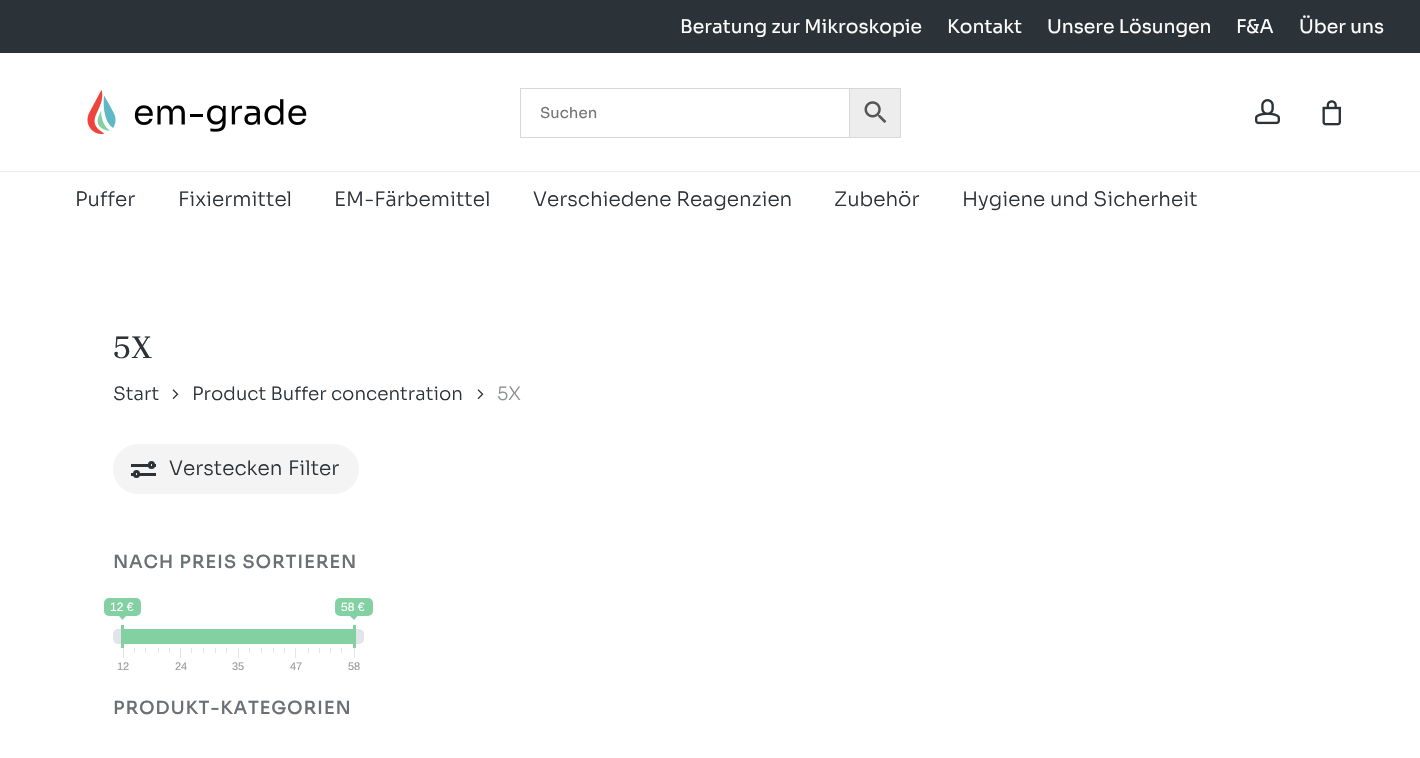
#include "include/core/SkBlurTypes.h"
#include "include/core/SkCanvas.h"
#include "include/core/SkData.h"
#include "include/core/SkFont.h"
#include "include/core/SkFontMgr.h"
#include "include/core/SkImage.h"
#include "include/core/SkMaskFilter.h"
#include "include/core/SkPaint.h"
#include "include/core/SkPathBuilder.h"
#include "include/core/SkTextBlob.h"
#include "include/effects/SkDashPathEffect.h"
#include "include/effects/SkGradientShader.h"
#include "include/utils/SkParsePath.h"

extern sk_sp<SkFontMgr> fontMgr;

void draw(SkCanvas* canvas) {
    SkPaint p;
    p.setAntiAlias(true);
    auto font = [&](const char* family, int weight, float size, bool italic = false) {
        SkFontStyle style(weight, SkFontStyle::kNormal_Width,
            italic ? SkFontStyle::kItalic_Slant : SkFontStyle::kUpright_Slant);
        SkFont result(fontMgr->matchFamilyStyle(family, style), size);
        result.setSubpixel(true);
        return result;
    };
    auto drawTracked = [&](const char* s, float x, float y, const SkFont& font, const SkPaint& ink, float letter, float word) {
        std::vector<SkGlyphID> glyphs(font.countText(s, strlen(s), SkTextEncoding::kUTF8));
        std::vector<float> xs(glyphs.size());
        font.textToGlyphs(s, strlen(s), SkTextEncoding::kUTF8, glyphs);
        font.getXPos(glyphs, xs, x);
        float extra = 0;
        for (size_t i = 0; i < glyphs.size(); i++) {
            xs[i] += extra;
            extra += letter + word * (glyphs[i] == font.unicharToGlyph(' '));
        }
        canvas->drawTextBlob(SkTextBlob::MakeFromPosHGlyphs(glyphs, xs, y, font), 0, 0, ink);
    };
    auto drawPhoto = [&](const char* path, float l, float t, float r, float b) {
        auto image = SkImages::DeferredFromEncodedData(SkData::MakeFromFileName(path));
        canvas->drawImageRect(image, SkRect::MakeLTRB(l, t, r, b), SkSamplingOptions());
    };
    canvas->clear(0xFFFFFFFF);
    p.setColor(0xFF2C3338);
    canvas->drawRect(SkRect::MakeLTRB(0, 0, 1420, 53), p);
    auto font1 = font("Sora", 400, 18.75f);
    p.setColor(0xFFFFFFFF);
    {
        const struct { const char* s; float x, y; } items[] = {
            {"Beratung zur Mikroskopie", 680, 33},
            {"Kontakt", 947, 33},
            {"Unsere Lösungen", 1047, 33},
            {"F&A", 1236, 33},
            {"Über uns", 1299, 33},
        };
        for (auto [s, x, y] : items) {
            canvas->drawString(s, x, y, font1, p);
        }
    }
    drawPhoto("media/1.png", 87, 90, 307, 134);
    p.setColor(0xFFEDEDED);
    canvas->drawRect(SkRect::MakeLTRB(849.5f, 88.5f, 900.5f, 137.5f), p);
    p.setStyle(SkPaint::kStroke_Style);
    p.setStrokeWidth(1);
    p.setColor(0xFFD8D8D8);
    canvas->drawRect(SkRect::MakeLTRB(849.5f, 88.5f, 900.5f, 137.5f), p);
    canvas->drawRect(SkRect::MakeLTRB(520.5f, 88.5f, 849.5f, 137.5f), p);
    auto font2 = font("Sora", 400, 15);
    p.setStyle(SkPaint::kFill_Style);
    p.setColor(0xFF757575);
    canvas->drawString("Suchen", 540, 118, font2, p);
    drawPhoto("media/2.png", 864, 101, 887, 123);
    drawPhoto("media/3.png", 1255, 99, 1280, 125);
    drawPhoto("media/4.png", 1322, 100, 1341, 126);
    p.setColor(0xFFEBEBEB);
    canvas->drawRect(SkRect::MakeLTRB(0, 171, 1420, 172), p);
    auto font3 = font("Sora", 300, 20);
    p.setColor(0xFF2C3338);
    {
        const struct { const char* s; float x, y; } items[] = {
            {"Puffer", 75, 206},
            {"Fixiermittel", 178, 206},
            {"EM-Färbemittel", 334, 206},
            {"Verschiedene Reagenzien", 533, 206},
            {"Zubehör", 834, 206},
            {"Hygiene und Sicherheit", 962, 206},
        };
        for (auto [s, x, y] : items) {
            canvas->drawString(s, x, y, font3, p);
        }
    }
    auto font4 = font("Unna", 400, 36);
    canvas->drawString("5X", 113, 358, font4, p);
    auto font5 = font("Sora", 300, 18.4f);
    canvas->drawString("Start", 113, 400, font5, p);
    drawPhoto("media/5.png", 172, 389, 179, 399);
    canvas->drawString("Product Buffer concentration", 192, 400, font5, p);
    drawPhoto("media/5.png", 477, 389, 484, 399);
    p.setColor(0xFF8B8F92);
    canvas->drawString("5X", 497, 400, font5, p);
    p.setColor(0xFFF4F4F4);
    canvas->drawRoundRect(SkRect::MakeLTRB(113, 444, 359, 494), 25, 25, p);
    p.setColor(0xFF2C3338);
    canvas->drawRect(SkRect::MakeLTRB(131, 464, 156, 467), p);
    canvas->drawRect(SkRect::MakeLTRB(131, 473, 156, 476), p);
    p.setColor(0xFFFFFFFF);
    canvas->drawRoundRect(SkRect::MakeLTRB(149.5f, 462.5f, 153.5f, 467.5f), 2, 2, p);
    p.setStyle(SkPaint::kStroke_Style);
    p.setStrokeWidth(3);
    p.setColor(0xFF2C3338);
    canvas->drawRoundRect(SkRect::MakeLTRB(149.5f, 462.5f, 153.5f, 467.5f), 2, 2, p);
    p.setStyle(SkPaint::kFill_Style);
    p.setColor(0xFFFFFFFF);
    canvas->drawRoundRect(SkRect::MakeLTRB(134.5f, 471.5f, 138.5f, 476.5f), 2, 2, p);
    p.setStyle(SkPaint::kStroke_Style);
    p.setColor(0xFF2C3338);
    canvas->drawRoundRect(SkRect::MakeLTRB(134.5f, 471.5f, 138.5f, 476.5f), 2, 2, p);
    p.setStyle(SkPaint::kFill_Style);
    canvas->drawString("Verstecken", 169, 475, font3, p);
    canvas->drawString("Filter", 288, 475, font3, p);
    auto font6 = font("Sora", 700, 17.5f);
    p.setColor(0xFF6B7074);
    drawTracked("NACH PREIS SORTIEREN", 113, 568, font6, p, 1.25f, 0);
    p.setColor(0xFF83D1A2);
    canvas->drawRoundRect(SkRect::MakeLTRB(104, 598, 141, 616), 5, 5, p);
    auto font7 = font("Liberation Sans", 400, 12);
    p.setColor(0xFFFFFFFF);
    canvas->drawString("12 €", 110, 611, font7, p);
    p.setColor(0xFF83D1A2);
    canvas->drawPath(SkPathBuilder().moveTo(119, 616).lineTo(126, 616).lineTo(122.5f, 620).close().detach(), p);
    canvas->drawRoundRect(SkRect::MakeLTRB(335, 598, 373, 616), 5, 5, p);
    p.setColor(0xFFFFFFFF);
    canvas->drawString("58 €", 341, 611, font7, p);
    p.setColor(0xFF83D1A2);
    canvas->drawPath(SkPathBuilder().moveTo(350, 616).lineTo(357.5f, 616).lineTo(354, 620).close().detach(), p);
    p.setColor(0xFFE1E4E9);
    canvas->drawRoundRect(SkRect::MakeLTRB(113, 629, 364, 644), 5, 5, p);
    {
        const struct { float l, t, r, b; SkColor color; } items[] = {
            {121, 625, 124, 648, 0xFF83D1A2},
            {124, 629, 353, 644, 0xFF83D1A2},
            {353, 625, 356, 648, 0xFF83D1A2},
            {123, 648, 124, 658, 0xFFE1E4E9},
            {134, 648, 135, 653, 0xFFE1E4E9},
            {145, 648, 146, 653, 0xFFE1E4E9},
            {158, 648, 159, 653, 0xFFE1E4E9},
            {169, 648, 170, 653, 0xFFE1E4E9},
            {180, 648, 181, 658, 0xFFE1E4E9},
            {191, 648, 192, 653, 0xFFE1E4E9},
            {203, 648, 204, 653, 0xFFE1E4E9},
            {215, 648, 216, 653, 0xFFE1E4E9},
            {226, 648, 227, 653, 0xFFE1E4E9},
            {238, 648, 239, 658, 0xFFE1E4E9},
            {249, 648, 250, 653, 0xFFE1E4E9},
            {261, 648, 262, 653, 0xFFE1E4E9},
            {273, 648, 274, 653, 0xFFE1E4E9},
            {284, 648, 285, 653, 0xFFE1E4E9},
            {295, 648, 296, 658, 0xFFE1E4E9},
            {308, 648, 309, 653, 0xFFE1E4E9},
            {319, 648, 320, 653, 0xFFE1E4E9},
            {330, 648, 331, 653, 0xFFE1E4E9},
            {341, 648, 342, 653, 0xFFE1E4E9},
            {354, 648, 355, 658, 0xFFE1E4E9},
        };
        for (auto [l, t, r, b, color] : items) {
            p.setColor(color);
            canvas->drawRect(SkRect::MakeLTRB(l, t, r, b), p);
        }
    }
    auto font8 = font("Liberation Sans", 400, 11);
    p.setColor(0xFF999999);
    {
        const struct { const char* s; float x, y; } items[] = {
            {"12", 117, 670},
            {"24", 175, 670},
            {"35", 232, 670},
            {"47", 290, 670},
            {"58", 348, 670},
        };
        for (auto [s, x, y] : items) {
            canvas->drawString(s, x, y, font8, p);
        }
    }
    p.setColor(0xFF6B7074);
    drawTracked("PRODUKT-KATEGORIEN", 113, 714, font6, p, 1.25f, 0);
}
